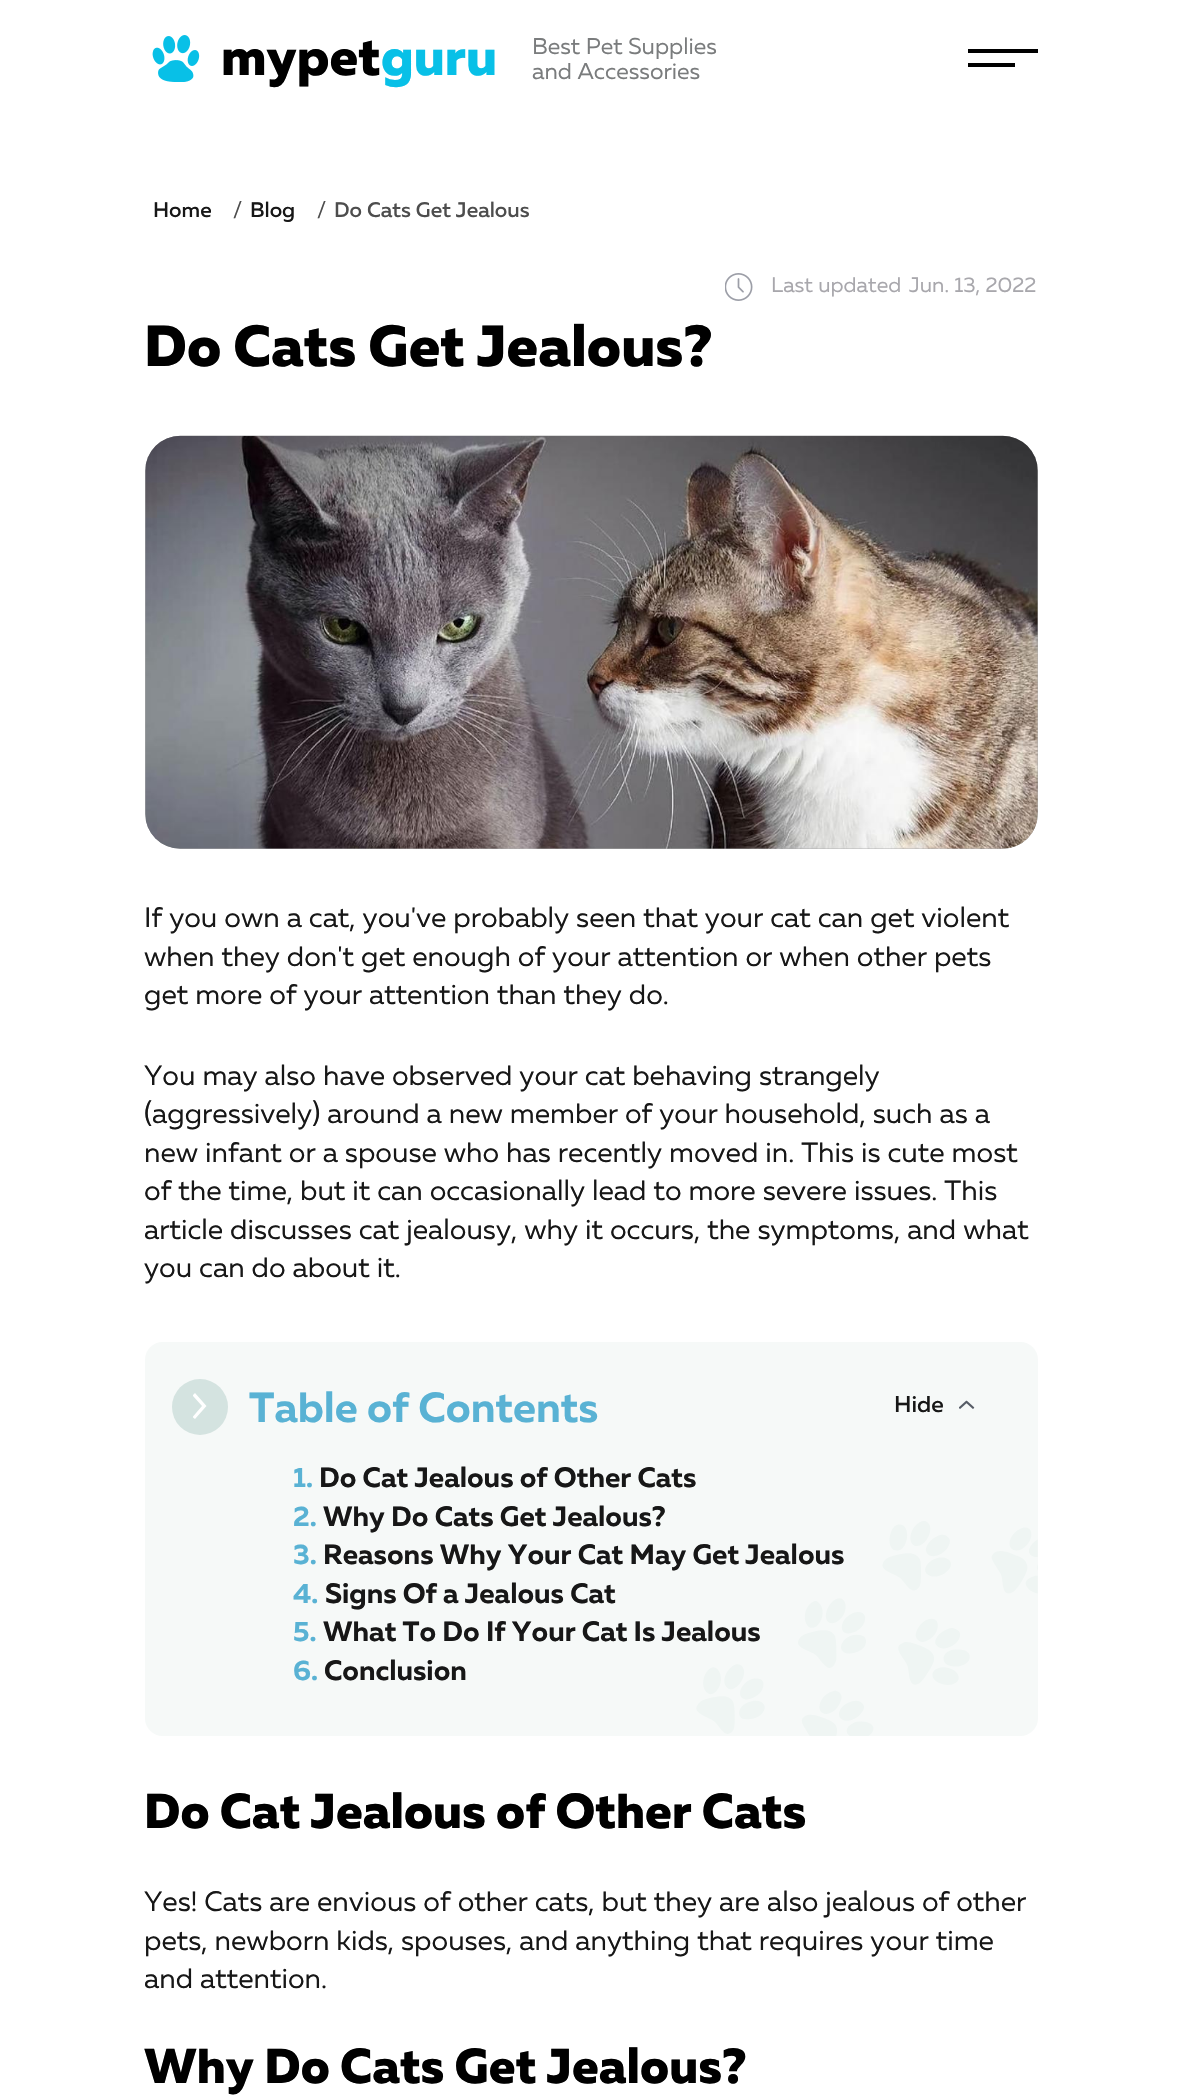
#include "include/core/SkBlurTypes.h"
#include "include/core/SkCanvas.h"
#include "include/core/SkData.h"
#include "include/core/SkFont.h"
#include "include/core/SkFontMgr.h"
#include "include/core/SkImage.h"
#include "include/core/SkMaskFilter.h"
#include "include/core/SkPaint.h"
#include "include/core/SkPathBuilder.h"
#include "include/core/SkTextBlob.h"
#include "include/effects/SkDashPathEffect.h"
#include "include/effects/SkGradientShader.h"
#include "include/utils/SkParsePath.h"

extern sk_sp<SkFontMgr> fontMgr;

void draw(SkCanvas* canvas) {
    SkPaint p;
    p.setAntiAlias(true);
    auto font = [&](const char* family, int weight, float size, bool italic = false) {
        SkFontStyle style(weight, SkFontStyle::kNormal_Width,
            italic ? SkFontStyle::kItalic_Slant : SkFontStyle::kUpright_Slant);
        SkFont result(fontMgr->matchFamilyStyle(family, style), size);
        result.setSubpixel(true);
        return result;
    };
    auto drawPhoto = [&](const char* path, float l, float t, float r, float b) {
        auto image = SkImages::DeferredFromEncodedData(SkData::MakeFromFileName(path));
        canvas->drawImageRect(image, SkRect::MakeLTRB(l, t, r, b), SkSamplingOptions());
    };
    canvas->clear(0xFFFFFFFF);
    drawPhoto("media/1.png", 152, 35, 200, 82);
    auto font1 = font("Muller", 800, 52.5f);
    p.setColor(0xFF000000);
    canvas->drawString("mypet", 221, 75, font1, p);
    p.setColor(0xFF08C0E7);
    canvas->drawString("guru", 381, 75, font1, p);
    auto font2 = font("Muller", 400, 22.75f);
    p.setColor(0xFF7A7C7D);
    canvas->drawString("Best Pet Supplies", 532, 54, font2, p);
    canvas->drawString("and Accessories", 532, 79, font2, p);
    p.setColor(0xFF000000);
    canvas->drawRect(SkRect::MakeLTRB(968, 49, 1038, 53), p);
    canvas->drawRect(SkRect::MakeLTRB(968, 63, 1015, 67), p);
    auto font3 = font("Muller", 500, 21);
    p.setColor(0xFF171717);
    canvas->drawString("Home", 153, 217, font3, p);
    p.setColor(0xFF4D4D4D);
    canvas->drawString("/", 233, 217, font3, p);
    p.setColor(0xFF171717);
    canvas->drawString("Blog", 250, 217, font3, p);
    p.setColor(0xFF4D4D4D);
    canvas->drawString("/", 317, 217, font3, p);
    canvas->drawString("Do Cats Get Jealous", 334, 217, font3, p);
    drawPhoto("media/2.png", 725, 273, 753, 301);
    auto font4 = font("Muller", 400, 21);
    p.setColor(0xFFA8A7AC);
    canvas->drawString("Last updated", 771, 292, font4, p);
    canvas->drawString("Jun. 13, 2022", 909, 292, font4, p);
    auto font5 = font("Muller", 800, 57.75f);
    p.setColor(0xFF000000);
    canvas->drawString("Do Cats Get Jealous?", 144, 366, font5, p);
    drawPhoto("media/3.png", 145, 435, 1038, 849);
    drawPhoto("media/4.png", 145, 435, 1038, 849);
    auto font6 = font("Muller", 400, 28);
    p.setColor(0xFF171717);
    {
        const struct { const char* s; float x, y; } items[] = {
            {"If you own a cat, you've probably seen that your cat can get violent", 144, 927},
            {"when they don't get enough of your attention or when other pets", 144, 966},
            {"get more of your attention than they do.", 144, 1004},
            {"You may also have observed your cat behaving strangely", 144, 1085},
            {"(aggressively) around a new member of your household, such as a", 144, 1123},
            {"new infant or a spouse who has recently moved in. This is cute most", 144, 1162},
            {"of the time, but it can occasionally lead to more severe issues. This", 144, 1200},
            {"article discusses cat jealousy, why it occurs, the symptoms, and what", 144, 1239},
            {"you can do about it.", 144, 1277},
        };
        for (auto [s, x, y] : items) {
            canvas->drawString(s, x, y, font6, p);
        }
    }
    p.setColor(0xFFF6F9F8);
    canvas->drawRoundRect(SkRect::MakeLTRB(145, 1342, 1038, 1736), 18, 18, p);
    drawPhoto("media/5.png", 696, 1521, 1038, 1736);
    p.setColor(0xFFD4E3E0);
    canvas->drawCircle(200, 1407, 28, p);
    canvas->save();
    canvas->clipRect(SkRect::MakeLTRB(193, 1393, 207, 1419));
    p.setColor(0xFFFFFFFF);
    canvas->drawPath(SkPathBuilder(SkPathFillType::kEvenOdd).moveTo(192.5f, 1395.5f).lineTo(202, 1406).lineTo(192.5f, 1417).lineTo(195, 1419).lineTo(206.5f, 1406).lineTo(195, 1393).close().detach(), p);
    canvas->restore();
    auto font7 = font("Muller", 700, 42);
    p.setColor(0xFF59B2D4);
    canvas->drawString("Table of Contents", 249, 1422, font7, p);
    auto font8 = font("Muller", 500, 22.75f);
    p.setColor(0xFF171717);
    canvas->drawString("Hide", 894, 1412, font8, p);
    drawPhoto("media/6.png", 959, 1400, 975, 1409);
    auto font9 = font("Muller", 700, 28);
    p.setColor(0xFF59B2D4);
    canvas->drawString("1.", 293, 1487, font9, p);
    p.setColor(0xFF171717);
    canvas->drawString("Do Cat Jealous of Other Cats", 319, 1487, font9, p);
    p.setColor(0xFF59B2D4);
    canvas->drawString("2.", 293, 1526, font9, p);
    p.setColor(0xFF171717);
    canvas->drawString("Why Do Cats Get Jealous?", 323, 1526, font9, p);
    p.setColor(0xFF59B2D4);
    canvas->drawString("3.", 293, 1564, font9, p);
    p.setColor(0xFF171717);
    canvas->drawString("Reasons Why Your Cat May Get Jealous", 323, 1564, font9, p);
    p.setColor(0xFF59B2D4);
    canvas->drawString("4.", 293, 1603, font9, p);
    p.setColor(0xFF171717);
    canvas->drawString("Signs Of a Jealous Cat", 325, 1603, font9, p);
    p.setColor(0xFF59B2D4);
    canvas->drawString("5.", 293, 1641, font9, p);
    p.setColor(0xFF171717);
    canvas->drawString("What To Do If Your Cat Is Jealous", 323, 1641, font9, p);
    p.setColor(0xFF59B2D4);
    canvas->drawString("6.", 293, 1680, font9, p);
    p.setColor(0xFF171717);
    canvas->drawString("Conclusion", 324, 1680, font9, p);
    auto font10 = font("Muller", 800, 49);
    p.setColor(0xFF000000);
    canvas->drawString("Do Cat Jealous of Other Cats", 144, 1828, font10, p);
    p.setColor(0xFF171717);
    {
        const struct { const char* s; float x, y; } items[] = {
            {"Yes! Cats are envious of other cats, but they are also jealous of other", 144, 1911},
            {"pets, newborn kids, spouses, and anything that requires your time", 144, 1950},
            {"and attention.", 144, 1988},
        };
        for (auto [s, x, y] : items) {
            canvas->drawString(s, x, y, font6, p);
        }
    }
    p.setColor(0xFF000000);
    canvas->drawString("Why Do Cats Get Jealous?", 144, 2083, font10, p);
}
